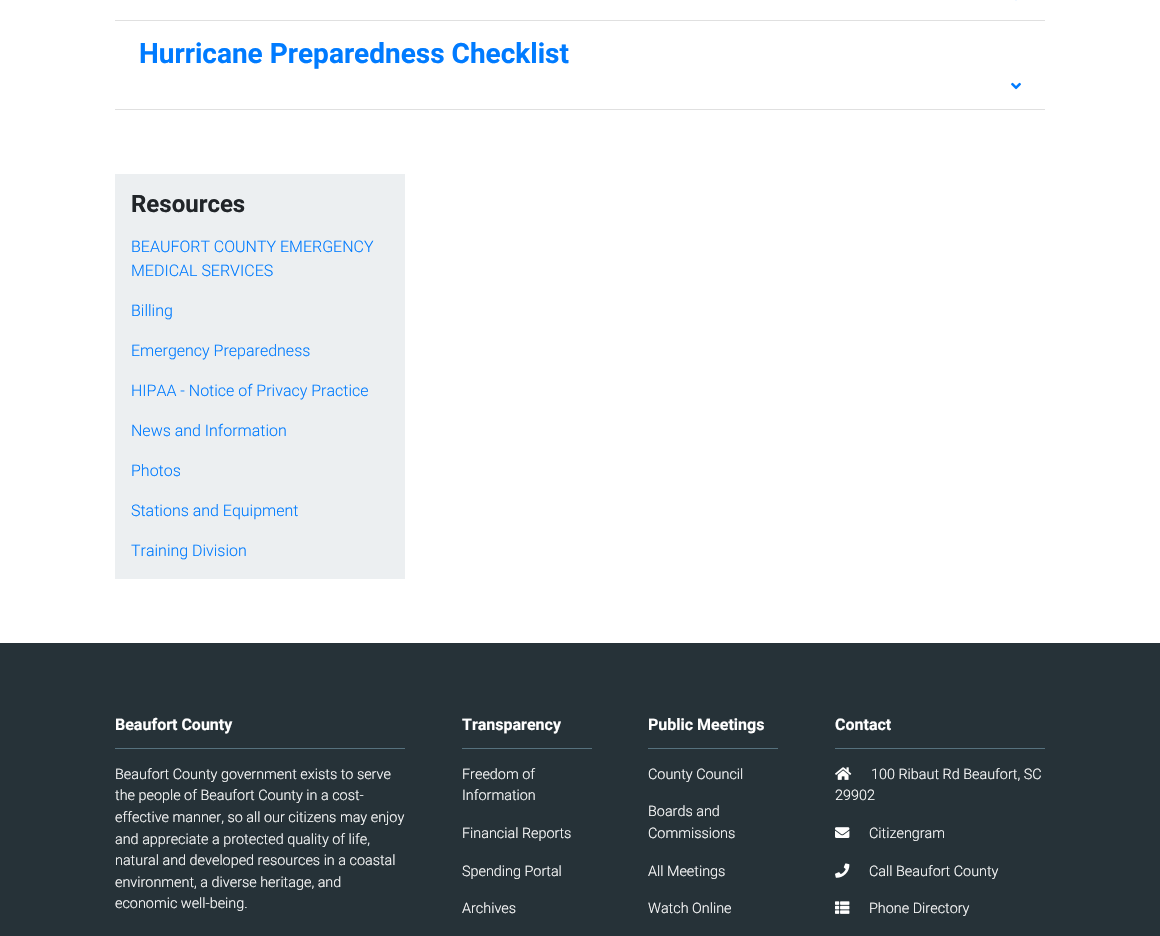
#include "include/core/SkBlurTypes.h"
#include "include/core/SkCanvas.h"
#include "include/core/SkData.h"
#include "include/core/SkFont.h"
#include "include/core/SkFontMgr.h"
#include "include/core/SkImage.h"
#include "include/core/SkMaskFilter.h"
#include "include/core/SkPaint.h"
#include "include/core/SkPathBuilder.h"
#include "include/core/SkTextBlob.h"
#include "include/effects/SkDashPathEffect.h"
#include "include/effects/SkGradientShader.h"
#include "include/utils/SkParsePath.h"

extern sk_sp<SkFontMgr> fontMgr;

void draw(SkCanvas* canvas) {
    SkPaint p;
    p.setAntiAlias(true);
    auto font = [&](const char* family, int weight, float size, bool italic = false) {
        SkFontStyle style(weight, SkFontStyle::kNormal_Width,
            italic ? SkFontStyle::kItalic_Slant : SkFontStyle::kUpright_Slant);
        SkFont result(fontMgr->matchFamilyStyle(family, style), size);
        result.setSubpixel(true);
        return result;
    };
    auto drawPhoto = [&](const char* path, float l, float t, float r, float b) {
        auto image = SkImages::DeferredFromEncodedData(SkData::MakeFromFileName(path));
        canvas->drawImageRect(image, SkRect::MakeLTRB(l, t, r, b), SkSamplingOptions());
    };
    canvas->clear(0xFFFFFFFF);
    {
        const struct { float l, t, r, b; SkColor color; } items[] = {
            {115, 20, 1045, 21, 0xFFE0E0E0},
            {1015, 0, 1017, 1, 0xFFF0F7FF},
            {115, 109, 1045, 110, 0xFFE0E0E0},
        };
        for (auto [l, t, r, b, color] : items) {
            p.setColor(color);
            canvas->drawRect(SkRect::MakeLTRB(l, t, r, b), p);
        }
    }
    auto font1 = font("Roboto", 700, 28);
    p.setColor(0xFF007BFF);
    canvas->drawString("Hurricane Preparedness Checklist", 139, 63, font1, p);
    drawPhoto("media/1.png", 1011, 82, 1021, 90);
    p.setColor(0xFFECEFF1);
    canvas->drawRect(SkRect::MakeLTRB(115, 174, 405, 579), p);
    auto font2 = font("Roboto", 700, 24);
    p.setColor(0xFF212529);
    canvas->drawString("Resources", 131, 212, font2, p);
    auto font3 = font("Roboto", 300, 16);
    p.setColor(0xFF007BFF);
    {
        const struct { const char* s; float x, y; } items[] = {
            {"BEAUFORT COUNTY EMERGENCY", 131, 252},
            {"MEDICAL SERVICES", 131, 276},
            {"Billing", 131, 316},
            {"Emergency Preparedness", 131, 356},
            {"HIPAA - Notice of Privacy Practice", 131, 396},
            {"News and Information", 131, 436},
            {"Photos", 131, 476},
            {"Stations and Equipment", 131, 516},
            {"Training Division", 131, 556},
        };
        for (auto [s, x, y] : items) {
            canvas->drawString(s, x, y, font3, p);
        }
    }
    p.setColor(0xFF263238);
    canvas->drawRect(SkRect::MakeLTRB(0, 643, 1160, 936), p);
    auto font4 = font("Roboto", 700, 16);
    p.setColor(0xFFFFFFFF);
    canvas->drawString("Beaufort County", 115, 730, font4, p);
    p.setColor(0xFF56717D);
    canvas->drawRect(SkRect::MakeLTRB(115, 748, 405, 749), p);
    auto font5 = font("Roboto", 300, 14.4f);
    p.setColor(0xFFFFFFFF);
    {
        const struct { const char* s; float x, y; } items[] = {
            {"Beaufort County government exists to serve", 115, 779},
            {"the people of Beaufort County in a cost-", 115, 800},
            {"effective manner, so all our citizens may enjoy", 115, 822},
            {"and appreciate a protected quality of life,", 115, 844},
            {"natural and developed resources in a coastal", 115, 865},
            {"environment, a diverse heritage, and", 115, 887},
            {"economic well-being.", 115, 908},
        };
        for (auto [s, x, y] : items) {
            canvas->drawString(s, x, y, font5, p);
        }
    }
    canvas->drawString("Transparency", 462, 730, font4, p);
    p.setColor(0xFF56717D);
    canvas->drawRect(SkRect::MakeLTRB(462, 748, 592, 749), p);
    p.setColor(0xFFFFFFFF);
    {
        const struct { const char* s; float x, y; } items[] = {
            {"Freedom of", 462, 779},
            {"Information", 462, 800},
            {"Financial Reports", 462, 838},
            {"Spending Portal", 462, 876},
            {"Archives", 462, 913},
        };
        for (auto [s, x, y] : items) {
            canvas->drawString(s, x, y, font5, p);
        }
    }
    canvas->drawString("Public Meetings", 648, 730, font4, p);
    p.setColor(0xFF56717D);
    canvas->drawRect(SkRect::MakeLTRB(648, 748, 778, 749), p);
    p.setColor(0xFFFFFFFF);
    {
        const struct { const char* s; float x, y; } items[] = {
            {"County Council", 648, 779},
            {"Boards and", 648, 816},
            {"Commissions", 648, 838},
            {"All Meetings", 648, 876},
            {"Watch Online", 648, 913},
        };
        for (auto [s, x, y] : items) {
            canvas->drawString(s, x, y, font5, p);
        }
    }
    canvas->drawString("Contact", 835, 730, font4, p);
    p.setColor(0xFF56717D);
    canvas->drawRect(SkRect::MakeLTRB(835, 748, 1045, 749), p);
    drawPhoto("media/2.png", 835, 767, 852, 780);
    p.setColor(0xFFFFFFFF);
    canvas->drawString("100 Ribaut Rd Beaufort, SC", 871, 779, font5, p);
    canvas->drawString("29902", 835, 800, font5, p);
    drawPhoto("media/3.png", 835, 827, 850, 838);
    canvas->drawString("Citizengram", 869, 838, font5, p);
    drawPhoto("media/4.png", 835, 863, 850, 878);
    canvas->drawString("Call Beaufort County", 869, 876, font5, p);
    drawPhoto("media/5.png", 835, 901, 850, 914);
    canvas->drawString("Phone Directory", 869, 913, font5, p);
}
